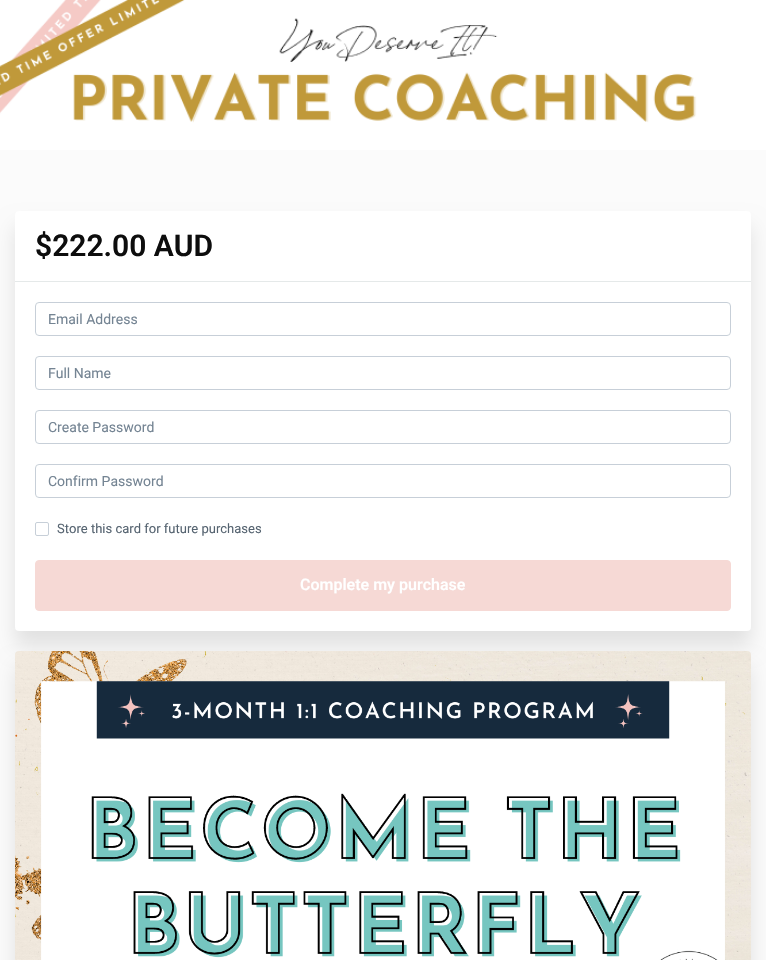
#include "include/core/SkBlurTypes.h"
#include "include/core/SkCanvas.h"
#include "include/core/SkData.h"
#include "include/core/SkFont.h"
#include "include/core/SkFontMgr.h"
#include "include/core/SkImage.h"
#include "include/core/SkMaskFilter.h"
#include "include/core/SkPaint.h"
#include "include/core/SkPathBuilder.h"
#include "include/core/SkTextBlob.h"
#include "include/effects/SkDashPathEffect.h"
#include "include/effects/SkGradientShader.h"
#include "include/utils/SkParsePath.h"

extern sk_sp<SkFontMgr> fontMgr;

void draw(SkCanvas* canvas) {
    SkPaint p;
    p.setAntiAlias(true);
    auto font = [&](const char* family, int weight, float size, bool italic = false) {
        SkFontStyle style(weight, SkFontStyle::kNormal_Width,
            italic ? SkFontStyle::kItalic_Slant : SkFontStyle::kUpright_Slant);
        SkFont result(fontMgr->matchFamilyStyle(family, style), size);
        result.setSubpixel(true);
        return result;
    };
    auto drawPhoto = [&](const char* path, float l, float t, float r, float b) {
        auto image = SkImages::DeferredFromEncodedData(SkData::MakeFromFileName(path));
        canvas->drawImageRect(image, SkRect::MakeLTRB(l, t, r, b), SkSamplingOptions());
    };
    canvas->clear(0xFFFBFBFB);
    drawPhoto("media/1.png", 0, 0, 766, 150);
    p.setColor(0x1A000000);
    p.setMaskFilter(SkMaskFilter::MakeBlur(kNormal_SkBlurStyle, 10));
    canvas->drawRoundRect(SkRect::MakeLTRB(15, 226, 751, 646), 4, 4, p);
    p.setMaskFilter(nullptr);
    p.setColor(0xFFFFFFFF);
    canvas->drawRoundRect(SkRect::MakeLTRB(15, 211, 751, 631), 4, 4, p);
    p.setColor(0xFFE5E9E9);
    canvas->drawRect(SkRect::MakeLTRB(15, 281, 751, 282), p);
    auto font1 = font("Roboto", 600, 30);
    p.setColor(0xFF0D0D0D);
    canvas->drawString("$222.00 AUD", 35, 256, font1, p);
    p.setStyle(SkPaint::kStroke_Style);
    p.setStrokeWidth(1);
    p.setColor(0xFFC7CFD8);
    canvas->drawRoundRect(SkRect::MakeLTRB(35.5f, 302.5f, 730.5f, 335.5f), 3.5f, 3.5f, p);
    auto font2 = font("Roboto", 400, 14);
    p.setStyle(SkPaint::kFill_Style);
    p.setColor(0xFF748493);
    canvas->drawString("Email Address", 48, 324, font2, p);
    p.setStyle(SkPaint::kStroke_Style);
    p.setColor(0xFFC7CFD8);
    canvas->drawRoundRect(SkRect::MakeLTRB(35.5f, 356.5f, 730.5f, 389.5f), 3.5f, 3.5f, p);
    p.setStyle(SkPaint::kFill_Style);
    p.setColor(0xFF748493);
    canvas->drawString("Full Name", 48, 378, font2, p);
    p.setStyle(SkPaint::kStroke_Style);
    p.setColor(0xFFC7CFD8);
    canvas->drawRoundRect(SkRect::MakeLTRB(35.5f, 410.5f, 730.5f, 443.5f), 3.5f, 3.5f, p);
    p.setStyle(SkPaint::kFill_Style);
    p.setColor(0xFF748493);
    canvas->drawString("Create Password", 48, 432, font2, p);
    p.setStyle(SkPaint::kStroke_Style);
    p.setColor(0xFFC7CFD8);
    canvas->drawRoundRect(SkRect::MakeLTRB(35.5f, 464.5f, 730.5f, 497.5f), 3.5f, 3.5f, p);
    p.setStyle(SkPaint::kFill_Style);
    p.setColor(0xFF748493);
    canvas->drawString("Confirm Password", 48, 486, font2, p);
    p.setStyle(SkPaint::kStroke_Style);
    p.setColor(0xFFC7CFD8);
    canvas->drawRoundRect(SkRect::MakeLTRB(35.5f, 522.5f, 48.5f, 535.5f), 1.5f, 1.5f, p);
    auto font3 = font("Roboto", 400, 13);
    p.setStyle(SkPaint::kFill_Style);
    p.setColor(0xFF556370);
    canvas->drawString("Store this card for future purchases", 57, 533, font3, p);
    p.setColor(0xFFF6D9D5);
    canvas->drawRoundRect(SkRect::MakeLTRB(35.5f, 560.5f, 730.5f, 610.5f), 3.5f, 3.5f, p);
    p.setStyle(SkPaint::kStroke_Style);
    canvas->drawRoundRect(SkRect::MakeLTRB(35.5f, 560.5f, 730.5f, 610.5f), 3.5f, 3.5f, p);
    auto font4 = font("Roboto", 600, 16);
    p.setStyle(SkPaint::kFill_Style);
    p.setColor(0xFFFFFFFF);
    canvas->drawString("Complete my purchase", 300, 590, font4, p);
    p.setColor(0x1A000000);
    p.setMaskFilter(SkMaskFilter::MakeBlur(kNormal_SkBlurStyle, 10));
    canvas->drawRoundRect(SkRect::MakeLTRB(15, 666, 751, 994), 4, 4, p);
    p.setMaskFilter(nullptr);
    drawPhoto("media/2.png", 15, 651, 751, 960);
}
